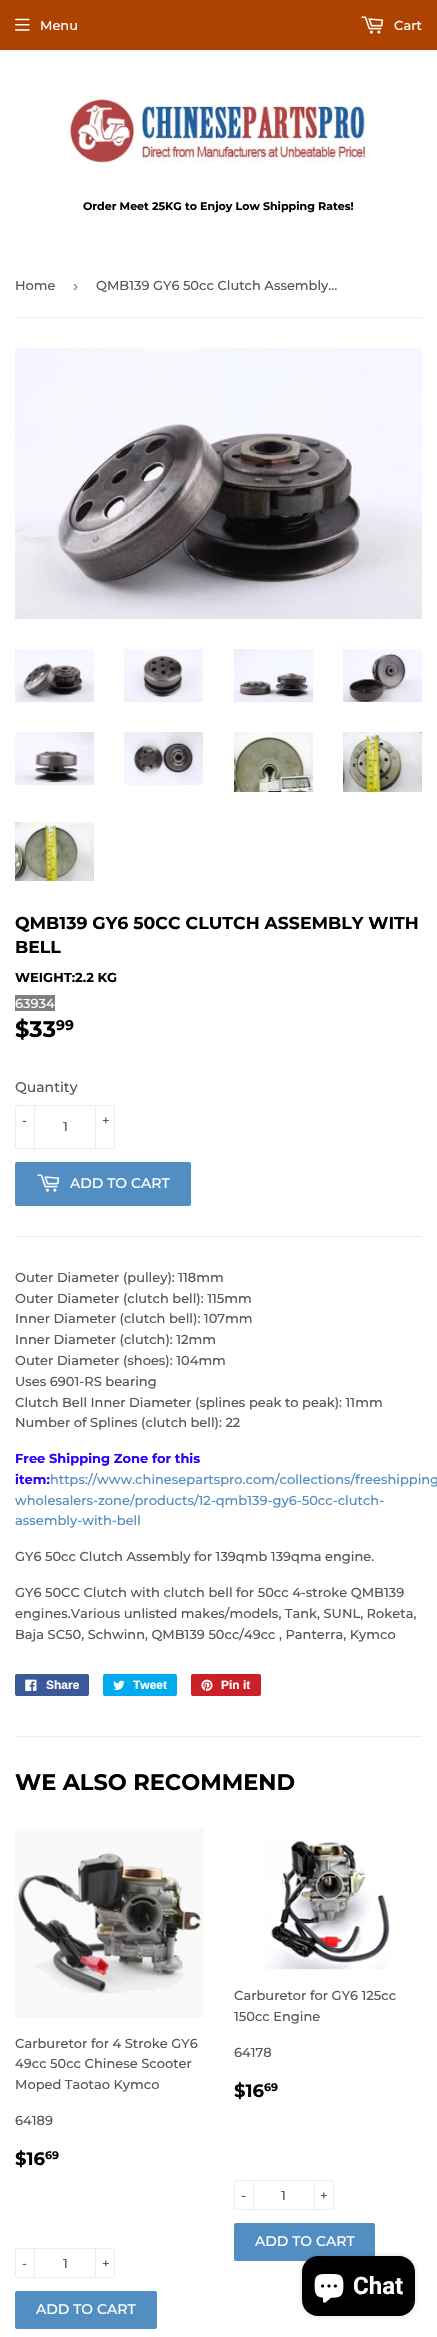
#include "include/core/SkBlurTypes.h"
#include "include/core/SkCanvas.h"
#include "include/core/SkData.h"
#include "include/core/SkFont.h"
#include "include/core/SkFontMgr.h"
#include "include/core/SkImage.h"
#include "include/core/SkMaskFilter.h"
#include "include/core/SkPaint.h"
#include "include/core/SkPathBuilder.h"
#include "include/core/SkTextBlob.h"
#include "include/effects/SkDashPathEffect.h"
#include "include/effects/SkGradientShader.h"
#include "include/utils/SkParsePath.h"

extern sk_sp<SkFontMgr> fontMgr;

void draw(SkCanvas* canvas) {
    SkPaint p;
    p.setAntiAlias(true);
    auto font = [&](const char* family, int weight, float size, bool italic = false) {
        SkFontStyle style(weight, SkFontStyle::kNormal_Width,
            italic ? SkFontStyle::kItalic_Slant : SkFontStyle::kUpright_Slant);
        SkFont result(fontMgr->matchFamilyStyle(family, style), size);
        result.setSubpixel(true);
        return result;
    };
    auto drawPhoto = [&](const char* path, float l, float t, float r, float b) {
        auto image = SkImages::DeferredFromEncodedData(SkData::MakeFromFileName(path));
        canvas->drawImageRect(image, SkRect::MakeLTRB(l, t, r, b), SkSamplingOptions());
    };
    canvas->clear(0xFFFFFFFF);
    p.setColor(0xFFAE4200);
    canvas->drawRect(SkRect::MakeLTRB(0, 0, 437, 50), p);
    drawPhoto("media/1.png", 15, 18, 30, 31);
    auto font1 = font("Montserrat", 500, 13);
    p.setColor(0xFFFFFFFF);
    canvas->drawString("Menu", 40, 30, font1, p);
    drawPhoto("media/2.png", 361, 16, 384, 34);
    canvas->drawString("Cart", 394, 30, font1, p);
    drawPhoto("media/3.png", 66, 95, 371, 163);
    auto font2 = font("Montserrat", 700, 11.05f);
    p.setColor(0xFF000000);
    canvas->drawString("Order Meet 25KG to Enjoy Low Shipping Rates!", 83, 210, font2, p);
    p.setColor(0xFFECECEC);
    canvas->drawRect(SkRect::MakeLTRB(15, 317, 422, 318), p);
    p.setColor(0xFF585858);
    canvas->drawString("Home", 15, 290, font1, p);
    auto font3 = font("Liberation Sans", 400, 15);
    p.setColor(0xFF767676);
    canvas->drawString("›", 73, 291, font3, p);
    p.setColor(0xFF585858);
    canvas->drawString("QMB139 GY6 50cc Clutch Assembly…", 96, 290, font1, p);
    drawPhoto("media/4.png", 15, 348, 422, 619);
    drawPhoto("media/5.png", 15, 649, 94, 702);
    drawPhoto("media/6.png", 124, 649, 203, 702);
    drawPhoto("media/7.png", 234, 649, 313, 702);
    drawPhoto("media/8.png", 343, 649, 422, 702);
    drawPhoto("media/9.png", 15, 732, 94, 785);
    drawPhoto("media/10.png", 124, 732, 203, 785);
    drawPhoto("media/11.png", 234, 732, 313, 792);
    drawPhoto("media/12.png", 343, 732, 422, 792);
    drawPhoto("media/13.png", 15, 822, 94, 881);
    auto font4 = font("Montserrat", 700, 17.3f);
    p.setColor(0xFF000000);
    canvas->drawString("QMB139 GY6 50CC CLUTCH ASSEMBLY WITH", 15, 929, font4, p);
    canvas->drawString("BELL", 15, 953, font4, p);
    auto font5 = font("Montserrat", 700, 13);
    canvas->drawString("WEIGHT:2.2 KG", 15, 982, font5, p);
    p.setColor(0xFF808080);
    canvas->drawRect(SkRect::MakeLTRB(15, 995, 55, 1011), p);
    p.setColor(0xFFFFFFFF);
    canvas->drawString("63934", 15, 1008, font1, p);
    auto font6 = font("Montserrat", 700, 22.5f);
    p.setColor(0xFF000000);
    canvas->drawString("$33", 15, 1037, font6, p);
    auto font7 = font("Montserrat", 700, 14);
    canvas->drawString("99", 56, 1030, font7, p);
    auto font8 = font("Montserrat", 500, 14);
    p.setColor(0xFF585858);
    canvas->drawString("Quantity", 15, 1092, font8, p);
    p.setStyle(SkPaint::kStroke_Style);
    p.setStrokeWidth(1);
    p.setColor(0xFFECECEC);
    canvas->drawRoundRect(SkRect::MakeLTRB(15.5f, 1105.5f, 114.5f, 1148.5f), 1.5f, 1.5f, p);
    p.setStyle(SkPaint::kFill_Style);
    canvas->drawRect(SkRect::MakeLTRB(34, 1105, 35, 1149), p);
    p.setColor(0xFF585858);
    canvas->drawString("-", 22, 1125, font1, p);
    canvas->drawString("1", 63, 1131, font1, p);
    p.setColor(0xFFECECEC);
    canvas->drawRect(SkRect::MakeLTRB(95, 1105, 96, 1149), p);
    p.setColor(0xFF585858);
    canvas->drawString("+", 102, 1125, font1, p);
    p.setColor(0xFF528EC1);
    canvas->drawRoundRect(SkRect::MakeLTRB(15, 1162, 191, 1206), 2, 2, p);
    drawPhoto("media/14.png", 37, 1174, 60, 1192);
    p.setColor(0xFFFFFFFF);
    canvas->drawString("ADD TO CART", 70, 1188, font8, p);
    p.setColor(0xFFECECEC);
    canvas->drawRect(SkRect::MakeLTRB(15, 1236, 422, 1237), p);
    p.setColor(0xFF585858);
    {
        const struct { const char* s; float x, y; } items[] = {
            {"Outer Diameter (pulley): 118mm", 15, 1282},
            {"Outer Diameter (clutch bell): 115mm", 15, 1303},
            {"Inner Diameter (clutch bell): 107mm", 15, 1323},
            {"Inner Diameter (clutch): 12mm", 15, 1344},
            {"Outer Diameter (shoes): 104mm", 15, 1365},
            {"Uses 6901-RS bearing", 15, 1386},
            {"Clutch Bell Inner Diameter (splines peak to peak): 11mm", 15, 1407},
            {"Number of Splines (clutch bell): 22", 15, 1427},
        };
        for (auto [s, x, y] : items) {
            canvas->drawString(s, x, y, font1, p);
        }
    }
    p.setColor(0xFF2B00FF);
    canvas->drawString("Free Shipping Zone for this", 15, 1463, font5, p);
    canvas->drawString("item:", 15, 1484, font5, p);
    p.setColor(0xFF528EC1);
    {
        const struct { const char* s; float x, y; } items[] = {
            {"https://www.chinesepartspro.com/collections/freeshipping", 50, 1484},
            {"wholesalers-zone/products/12-qmb139-gy6-50cc-clutch-", 15, 1505},
            {"assembly-with-bell", 15, 1525},
        };
        for (auto [s, x, y] : items) {
            canvas->drawString(s, x, y, font1, p);
        }
    }
    p.setColor(0xFF585858);
    {
        const struct { const char* s; float x, y; } items[] = {
            {"GY6 50cc Clutch Assembly for 139qmb 139qma engine.", 15, 1561},
            {"GY6 50CC Clutch with clutch bell for 50cc 4-stroke QMB139", 15, 1597},
            {"engines.Various unlisted makes/models, Tank, SUNL, Roketa,", 15, 1618},
            {"Baja SC50, Schwinn, QMB139 50cc/49cc , Panterra, Kymco", 15, 1639},
        };
        for (auto [s, x, y] : items) {
            canvas->drawString(s, x, y, font1, p);
        }
    }
    p.setColor(0xFF3B5998);
    canvas->drawRoundRect(SkRect::MakeLTRB(15, 1674, 89, 1696), 2, 2, p);
    drawPhoto("media/15.png", 25, 1679, 37, 1691);
    auto font9 = font("Liberation Sans", 700, 12);
    p.setColor(0xFFFFFFFF);
    canvas->drawString("Share", 46, 1689, font9, p);
    p.setColor(0xFF00ACED);
    canvas->drawRoundRect(SkRect::MakeLTRB(103, 1674, 177, 1696), 2, 2, p);
    drawPhoto("media/16.png", 113, 1680, 125, 1690);
    p.setColor(0xFFFFFFFF);
    canvas->drawString("Tweet", 133, 1689, font9, p);
    p.setColor(0xFFCB2027);
    canvas->drawRoundRect(SkRect::MakeLTRB(191, 1674, 261, 1696), 2, 2, p);
    drawPhoto("media/17.png", 201, 1679, 213, 1691);
    p.setColor(0xFFFFFFFF);
    canvas->drawString("Pin it", 221, 1689, font9, p);
    p.setColor(0xFFECECEC);
    canvas->drawRect(SkRect::MakeLTRB(15, 1736, 422, 1737), p);
    p.setColor(0xFF000000);
    canvas->drawString("WE ALSO RECOMMEND", 15, 1790, font6, p);
    drawPhoto("media/18.png", 15, 1829, 204, 2018);
    p.setColor(0xFF585858);
    {
        const struct { const char* s; float x, y; } items[] = {
            {"Carburetor for 4 Stroke GY6", 15, 2048},
            {"49cc 50cc Chinese Scooter", 15, 2068},
            {"Moped Taotao Kymco", 15, 2089},
            {"64189", 15, 2125},
        };
        for (auto [s, x, y] : items) {
            canvas->drawString(s, x, y, font1, p);
        }
    }
    auto font10 = font("Montserrat", 700, 18);
    p.setColor(0xFF000000);
    canvas->drawString("$16", 15, 2165, font10, p);
    auto font11 = font("Montserrat", 700, 11);
    canvas->drawString("69", 45, 2159, font11, p);
    p.setStyle(SkPaint::kStroke_Style);
    p.setColor(0xFFECECEC);
    canvas->drawRoundRect(SkRect::MakeLTRB(15.5f, 2248.5f, 114.5f, 2277.5f), 1.5f, 1.5f, p);
    p.setStyle(SkPaint::kFill_Style);
    canvas->drawRect(SkRect::MakeLTRB(34, 2248, 35, 2278), p);
    p.setColor(0xFF585858);
    canvas->drawString("-", 22, 2268, font1, p);
    canvas->drawString("1", 63, 2268, font1, p);
    p.setColor(0xFFECECEC);
    canvas->drawRect(SkRect::MakeLTRB(95, 2248, 96, 2278), p);
    p.setColor(0xFF585858);
    canvas->drawString("+", 102, 2268, font1, p);
    p.setColor(0xFF528EC1);
    canvas->drawRoundRect(SkRect::MakeLTRB(15, 2291, 157, 2329), 2, 2, p);
    p.setColor(0xFFFFFFFF);
    canvas->drawString("ADD TO CART", 36, 2314, font8, p);
    drawPhoto("media/19.png", 263, 1838, 390, 1970);
    p.setColor(0xFF585858);
    {
        const struct { const char* s; float x, y; } items[] = {
            {"Carburetor for GY6 125cc", 234, 2000},
            {"150cc Engine", 234, 2021},
            {"64178", 234, 2057},
        };
        for (auto [s, x, y] : items) {
            canvas->drawString(s, x, y, font1, p);
        }
    }
    p.setColor(0xFF000000);
    canvas->drawString("$16", 234, 2097, font10, p);
    canvas->drawString("69", 264, 2091, font11, p);
    p.setStyle(SkPaint::kStroke_Style);
    p.setColor(0xFFECECEC);
    canvas->drawRoundRect(SkRect::MakeLTRB(234.5f, 2180.5f, 333.5f, 2209.5f), 1.5f, 1.5f, p);
    p.setStyle(SkPaint::kFill_Style);
    canvas->drawRect(SkRect::MakeLTRB(253, 2180, 254, 2210), p);
    p.setColor(0xFF585858);
    canvas->drawString("-", 241, 2200, font1, p);
    canvas->drawString("1", 281, 2200, font1, p);
    p.setColor(0xFFECECEC);
    canvas->drawRect(SkRect::MakeLTRB(314, 2180, 315, 2210), p);
    p.setColor(0xFF585858);
    canvas->drawString("+", 320, 2200, font1, p);
    p.setColor(0xFF528EC1);
    canvas->drawRoundRect(SkRect::MakeLTRB(234, 2223, 375, 2261), 2, 2, p);
    p.setColor(0xFFFFFFFF);
    canvas->drawString("ADD TO CART", 255, 2246, font8, p);
    p.setColor(0x26000000);
    p.setMaskFilter(SkMaskFilter::MakeBlur(kNormal_SkBlurStyle, 2.5f));
    canvas->drawRoundRect(SkRect::MakeLTRB(302, 2256, 415, 2316), 16, 16, p);
    p.setMaskFilter(nullptr);
    p.setColor(0xFF000000);
    canvas->drawRoundRect(SkRect::MakeLTRB(302, 2256, 415, 2316), 16, 16, p);
    drawPhoto("media/20.png", 314, 2274, 344, 2303);
    auto font12 = font("Roboto", 700, 24);
    p.setColor(0xFFFFFFFF);
    canvas->drawString("Chat", 353, 2294, font12, p);
}
